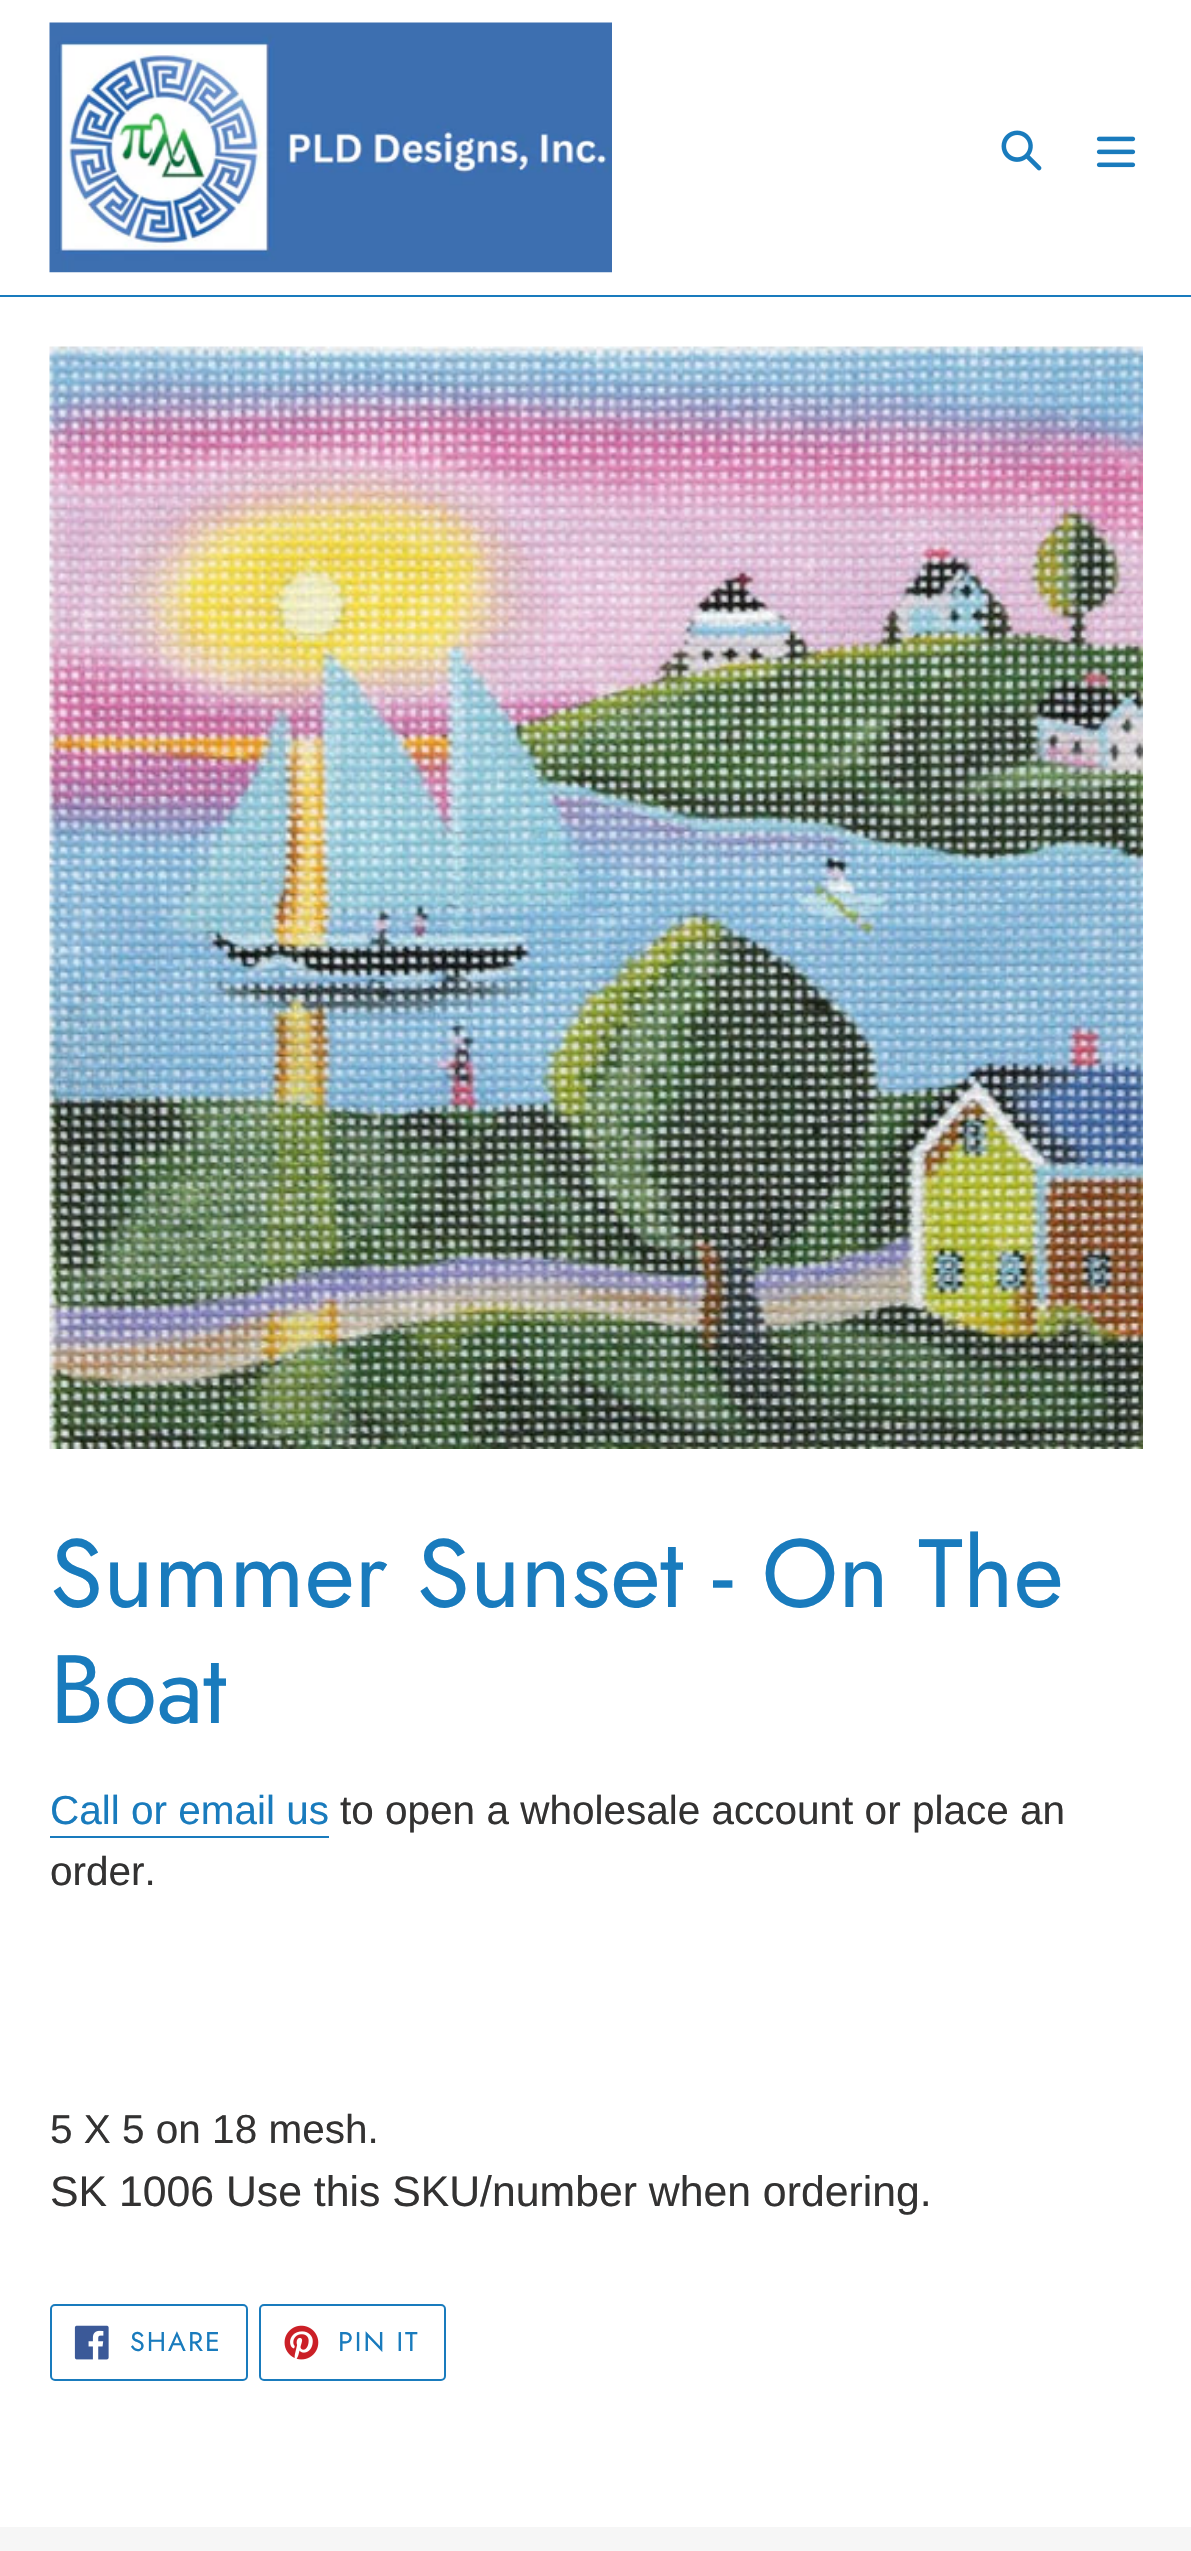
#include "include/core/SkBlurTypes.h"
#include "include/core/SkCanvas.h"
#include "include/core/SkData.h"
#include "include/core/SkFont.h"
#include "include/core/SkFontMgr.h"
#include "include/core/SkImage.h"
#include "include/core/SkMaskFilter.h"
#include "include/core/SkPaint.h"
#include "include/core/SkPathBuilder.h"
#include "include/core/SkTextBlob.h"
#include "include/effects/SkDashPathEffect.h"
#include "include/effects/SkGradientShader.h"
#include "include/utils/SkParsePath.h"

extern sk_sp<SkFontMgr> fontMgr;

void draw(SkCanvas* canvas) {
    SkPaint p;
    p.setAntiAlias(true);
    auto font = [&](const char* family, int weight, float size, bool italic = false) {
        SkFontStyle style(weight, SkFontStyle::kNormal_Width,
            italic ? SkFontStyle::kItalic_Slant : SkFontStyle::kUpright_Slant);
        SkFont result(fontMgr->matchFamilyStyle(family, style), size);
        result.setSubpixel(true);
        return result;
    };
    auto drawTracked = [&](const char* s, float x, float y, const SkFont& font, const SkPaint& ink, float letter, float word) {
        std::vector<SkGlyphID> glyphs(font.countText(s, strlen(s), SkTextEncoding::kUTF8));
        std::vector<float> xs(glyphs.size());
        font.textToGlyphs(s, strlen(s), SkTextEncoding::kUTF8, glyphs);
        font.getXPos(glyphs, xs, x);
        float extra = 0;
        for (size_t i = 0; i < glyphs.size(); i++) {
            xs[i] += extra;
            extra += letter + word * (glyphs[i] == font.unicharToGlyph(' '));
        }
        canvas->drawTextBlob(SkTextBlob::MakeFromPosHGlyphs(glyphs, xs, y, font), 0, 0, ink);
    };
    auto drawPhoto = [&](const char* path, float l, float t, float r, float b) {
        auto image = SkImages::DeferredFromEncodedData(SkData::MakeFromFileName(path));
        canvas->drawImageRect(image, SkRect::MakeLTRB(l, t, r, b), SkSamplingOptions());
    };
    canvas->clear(0xFFFFFFFF);
    p.setColor(0xFF197BBD);
    canvas->drawRect(SkRect::MakeLTRB(0, 295, 1191, 297), p);
    drawPhoto("media/1.png", 49, 22, 612, 273);
    drawPhoto("media/2.png", 1001, 130, 1042, 171);
    drawPhoto("media/3.png", 1096, 136, 1136, 168);
    drawPhoto("media/4.png", 49, 346, 1143, 1449);
    auto font1 = font("Jost", 400, 96.75f);
    canvas->drawString("Summer Sunset - On The", 50, 1607, font1, p);
    canvas->drawString("Boat", 50, 1723, font1, p);
    auto font2 = font("Liberation Sans", 400, 40.5f);
    canvas->drawString("Call or email us", 50, 1824, font2, p);
    canvas->drawRect(SkRect::MakeLTRB(50, 1836, 329, 1838), p);
    p.setColor(0xFF333232);
    {
        const struct { const char* s; float x, y; } items[] = {
            {"to open a wholesale account or place an", 340, 1824},
            {"order.", 50, 1885},
            {"5 X 5 on 18 mesh.", 50, 2143},
        };
        for (auto [s, x, y] : items) {
            canvas->drawString(s, x, y, font2, p);
        }
    }
    auto font3 = font("Liberation Sans", 400, 42.75f);
    canvas->drawString("SK 1006 Use this SKU/number when ordering.", 50, 2206, font3, p);
    p.setStyle(SkPaint::kStroke_Style);
    p.setStrokeWidth(2);
    p.setColor(0xFF197BBD);
    canvas->drawRoundRect(SkRect::MakeLTRB(51, 2305, 247, 2380), 4, 4, p);
    drawPhoto("media/5.png", 74, 2325, 109, 2360);
    auto font4 = font("Jost", 400, 27);
    p.setStyle(SkPaint::kFill_Style);
    drawTracked("SHARE", 130, 2351, font4, p, 2, 0);
    p.setStyle(SkPaint::kStroke_Style);
    canvas->drawRoundRect(SkRect::MakeLTRB(260, 2305, 445, 2380), 4, 4, p);
    drawPhoto("media/6.png", 284, 2325, 319, 2360);
    p.setStyle(SkPaint::kFill_Style);
    drawTracked("PIN IT", 338, 2351, font4, p, 2, 0);
    p.setColor(0xFFF6F6F6);
    canvas->drawRect(SkRect::MakeLTRB(0, 2527, 1191, 2551), p);
}
